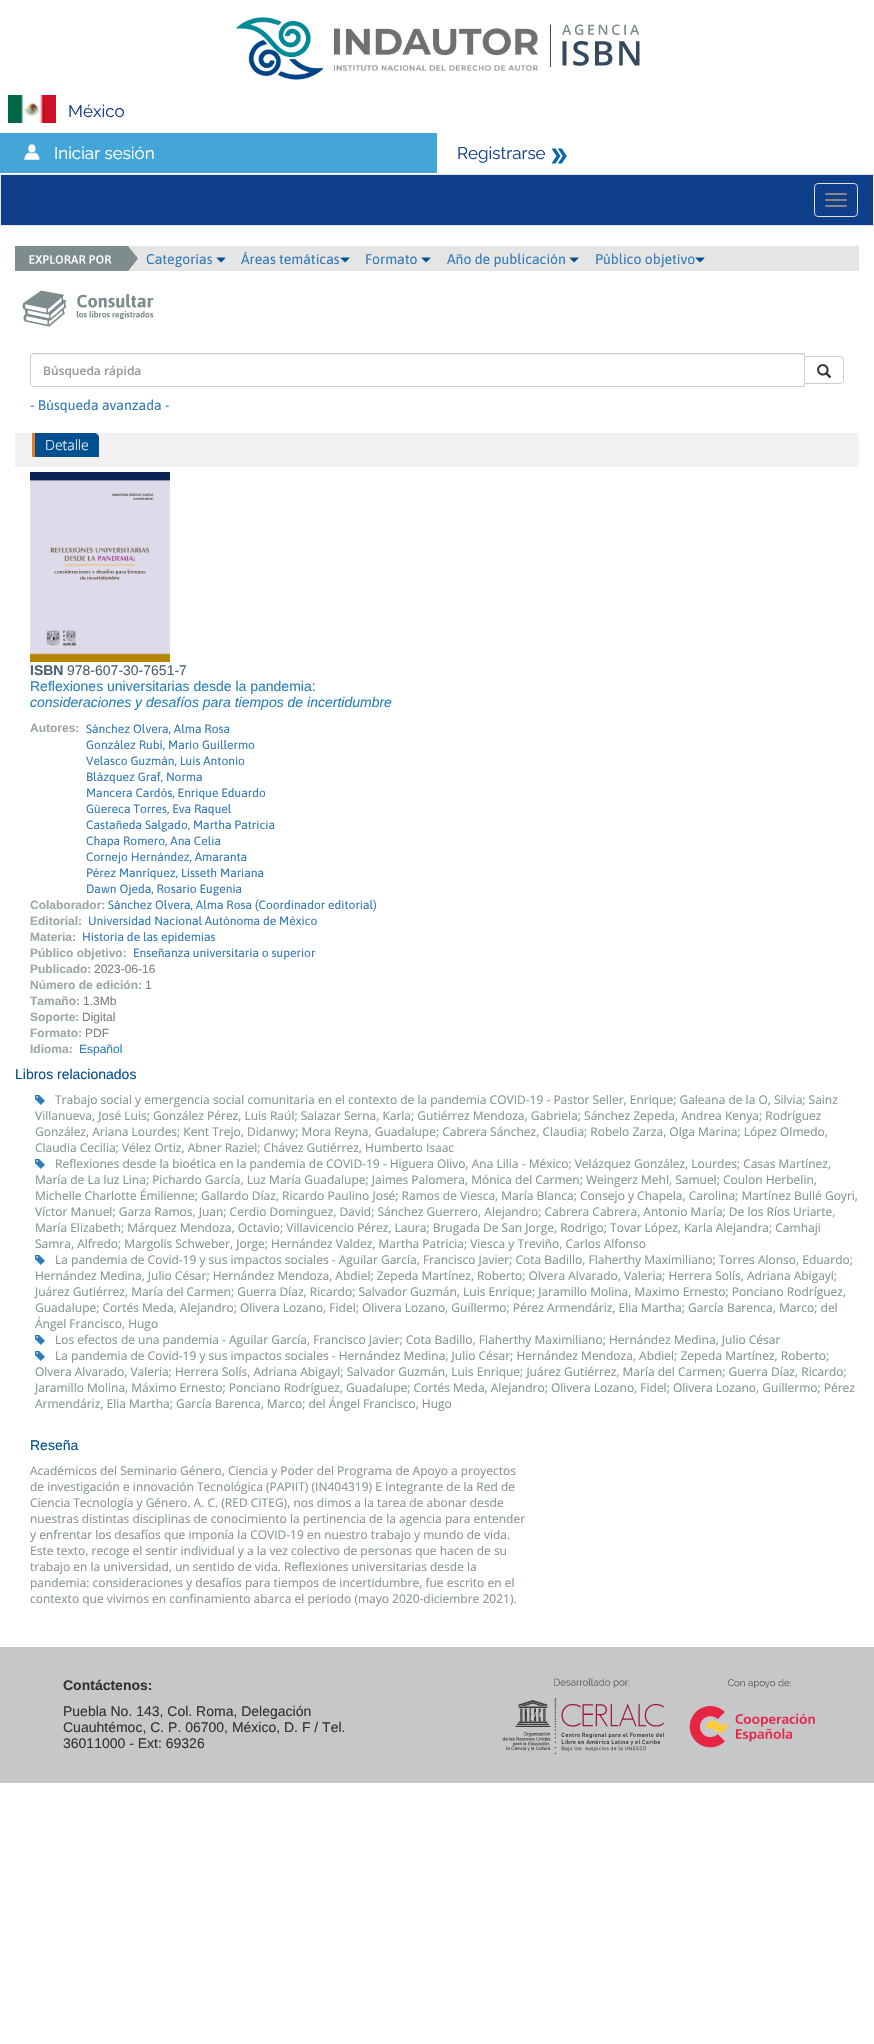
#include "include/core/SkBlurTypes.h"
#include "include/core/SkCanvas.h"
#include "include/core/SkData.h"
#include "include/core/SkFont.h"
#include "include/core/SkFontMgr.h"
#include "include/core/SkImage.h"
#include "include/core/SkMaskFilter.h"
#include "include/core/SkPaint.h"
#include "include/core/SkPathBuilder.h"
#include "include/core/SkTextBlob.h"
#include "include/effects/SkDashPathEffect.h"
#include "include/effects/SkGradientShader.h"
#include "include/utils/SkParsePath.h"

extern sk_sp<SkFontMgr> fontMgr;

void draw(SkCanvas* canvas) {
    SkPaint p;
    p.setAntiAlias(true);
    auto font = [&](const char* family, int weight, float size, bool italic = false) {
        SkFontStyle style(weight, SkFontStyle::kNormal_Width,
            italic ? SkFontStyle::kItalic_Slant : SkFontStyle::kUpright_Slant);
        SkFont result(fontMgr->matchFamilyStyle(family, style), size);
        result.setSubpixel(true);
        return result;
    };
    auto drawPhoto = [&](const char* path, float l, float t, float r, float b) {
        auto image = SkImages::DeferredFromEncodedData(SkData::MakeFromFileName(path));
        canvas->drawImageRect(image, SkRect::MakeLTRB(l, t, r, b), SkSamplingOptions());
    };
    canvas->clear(0xFFFFFFFF);
    drawPhoto("media/1.png", 236, 17, 538, 80);
    drawPhoto("media/2.png", 550, 24, 640, 67);
    drawPhoto("media/3.png", 8, 95, 56, 123);
    auto font1 = font("Raleway", 100, 17);
    p.setColor(0xFF0F3E8B);
    canvas->drawString("México", 68, 117, font1, p);
    p.setColor(0xFF44A5D9);
    canvas->drawRect(SkRect::MakeLTRB(0, 133, 437, 173), p);
    drawPhoto("media/4.png", 24, 144, 40, 160);
    p.setColor(0xFFFFFFFF);
    canvas->drawString("Iniciar sesión", 54, 159, font1, p);
    p.setColor(0xFF0F3E8B);
    canvas->drawString("Registrarse", 457, 159, font1, p);
    drawPhoto("media/5.png", 551, 148, 567, 164);
    canvas->drawRect(SkRect::MakeLTRB(0.5f, 174.5f, 873.5f, 225.5f), p);
    p.setStyle(SkPaint::kStroke_Style);
    p.setStrokeWidth(1);
    p.setColor(0xFFE7E7E7);
    canvas->drawRect(SkRect::MakeLTRB(0.5f, 174.5f, 873.5f, 225.5f), p);
    p.setColor(0xFFDDDDDD);
    canvas->drawRoundRect(SkRect::MakeLTRB(814.5f, 183.5f, 857.5f, 216.5f), 3.5f, 3.5f, p);
    p.setStyle(SkPaint::kFill_Style);
    p.setColor(0xFF888888);
    canvas->drawRoundRect(SkRect::MakeLTRB(825, 193, 847, 195), 1, 1, p);
    canvas->drawRoundRect(SkRect::MakeLTRB(825, 199, 847, 201), 1, 1, p);
    canvas->drawRoundRect(SkRect::MakeLTRB(825, 205, 847, 207), 1, 1, p);
    p.setColor(0xFFE5E5E5);
    canvas->drawRect(SkRect::MakeLTRB(129, 246, 859, 271), p);
    drawPhoto("media/6.png", 15, 246, 138, 271);
    auto font2 = font("Asap", 400, 14);
    p.setColor(0xFF337AB7);
    canvas->drawString("Categorías", 146, 264, font2, p);
    drawPhoto("media/7.png", 216, 257, 226, 263);
    canvas->drawString("Áreas temáticas", 241, 264, font2, p);
    drawPhoto("media/7.png", 340, 257, 350, 263);
    canvas->drawString("Formato", 365, 264, font2, p);
    drawPhoto("media/7.png", 421, 257, 431, 263);
    canvas->drawString("Año de publicación", 447, 264, font2, p);
    drawPhoto("media/7.png", 569, 257, 579, 263);
    canvas->drawString("Público objetivo", 595, 264, font2, p);
    drawPhoto("media/7.png", 695, 257, 705, 263);
    drawPhoto("media/8.png", 22, 290, 154, 327);
    p.setColor(0xFFECECEC);
    canvas->drawPath(SkPathBuilder().moveTo(34, 355).lineTo(804, 355).lineTo(804, 354).lineTo(34, 354).cubicTo(32, 354, 31, 356, 31, 358).cubicTo(31, 356, 32, 355, 34, 355).close().detach(), p);
    p.setStyle(SkPaint::kStroke_Style);
    p.setColor(0xFFCCCCCC);
    canvas->drawPath(SkPathBuilder().moveTo(34, 353.5f).lineTo(804.5f, 353.5f).lineTo(804.5f, 386.5f).lineTo(34, 386.5f).cubicTo(32, 386.5f, 30.5f, 385, 30.5f, 383).lineTo(30.5f, 357).cubicTo(30.5f, 355, 32, 353.5f, 34, 353.5f).close().detach(), p);
    auto font3 = font("Open Sans", 600, 12);
    p.setStyle(SkPaint::kFill_Style);
    p.setColor(0xFF999999);
    canvas->drawString("Búsqueda rápida", 43, 375, font3, p);
    p.setColor(0xFFFFFFFF);
    canvas->drawPath(SkPathBuilder().moveTo(804.5f, 356.5f).lineTo(840, 356.5f).cubicTo(842, 356.5f, 843.5f, 358, 843.5f, 360).lineTo(843.5f, 380).cubicTo(843.5f, 382, 842, 383.5f, 840, 383.5f).lineTo(804.5f, 383.5f).close().detach(), p);
    p.setStyle(SkPaint::kStroke_Style);
    p.setColor(0xFFCCCCCC);
    canvas->drawPath(SkPathBuilder().moveTo(804.5f, 356.5f).lineTo(840, 356.5f).cubicTo(842, 356.5f, 843.5f, 358, 843.5f, 360).lineTo(843.5f, 380).cubicTo(843.5f, 382, 842, 383.5f, 840, 383.5f).lineTo(804.5f, 383.5f).close().detach(), p);
    drawPhoto("media/9.png", 817, 364, 832, 378);
    p.setStyle(SkPaint::kFill_Style);
    p.setColor(0xFF337AB7);
    canvas->drawString("- Búsqueda avanzada -", 30, 410, font2, p);
    p.setColor(0xFFF1F1F1);
    canvas->drawRect(SkRect::MakeLTRB(15, 433, 859, 467), p);
    p.setColor(0xFF02508F);
    canvas->drawPath(SkPathBuilder().moveTo(32, 433).lineTo(94, 433).cubicTo(97, 433, 99, 435, 99, 438).lineTo(99, 457).lineTo(32, 457).close().detach(), p);
    auto font4 = font("Open Sans", 300, 14);
    p.setColor(0xFFFFFFFF);
    canvas->drawString("Detalle", 45, 450, font4, p);
    p.setColor(0xFFE67E22);
    canvas->drawRect(SkRect::MakeLTRB(32, 433, 35, 457), p);
    drawPhoto("media/10.png", 30, 472, 170, 662);
    auto font5 = font("Liberation Sans", 700, 14);
    p.setColor(0xFF4D5F72);
    canvas->drawString("ISBN", 30, 675, font5, p);
    auto font6 = font("Liberation Sans", 400, 14);
    canvas->drawString("978-607-30-7651-7", 67, 675, font6, p);
    p.setColor(0xFF2980B9);
    canvas->drawString("Reflexiones universitarias desde la pandemia:", 30, 691, font6, p);
    auto font7 = font("Liberation Sans", 400, 14, true);
    canvas->drawString("consideraciones y desafíos para tiempos de incertidumbre", 30, 707, font7, p);
    auto font8 = font("Liberation Sans", 700, 12);
    p.setColor(0xFF9DA7A8);
    canvas->drawString("Autores:", 30, 732, font8, p);
    auto font9 = font("Asap", 400, 12);
    p.setColor(0xFF337AB7);
    {
        const struct { const char* s; float x, y; } items[] = {
            {"Sánchez Olvera, Alma Rosa", 86, 733},
            {"González Rubí, Mario Guillermo", 86, 749},
            {"Velasco Guzmán, Luis Antonio", 86, 765},
            {"Blázquez Graf, Norma", 86, 781},
            {"Mancera Cardós, Enrique Eduardo", 86, 797},
            {"Güereca Torres, Eva Raquel", 86, 813},
            {"Castañeda Salgado, Martha Patricia", 86, 829},
            {"Chapa Romero, Ana Celia", 86, 845},
            {"Cornejo Hernández, Amaranta", 86, 861},
            {"Pérez Manríquez, Lisseth Mariana", 86, 877},
            {"Dawn Ojeda, Rosario Eugenia", 86, 893},
        };
        for (auto [s, x, y] : items) {
            canvas->drawString(s, x, y, font9, p);
        }
    }
    p.setColor(0xFF9DA7A8);
    canvas->drawString("Colaborador:", 30, 909, font8, p);
    p.setColor(0xFF337AB7);
    canvas->drawString("Sánchez Olvera, Alma Rosa (Coordinador editorial)", 108, 909, font9, p);
    p.setColor(0xFF9DA7A8);
    canvas->drawString("Editorial:", 30, 925, font8, p);
    p.setColor(0xFF337AB7);
    canvas->drawString("Universidad Nacional Autónoma de México", 88, 925, font9, p);
    p.setColor(0xFF9DA7A8);
    canvas->drawString("Materia:", 30, 941, font8, p);
    p.setColor(0xFF337AB7);
    canvas->drawString("Historia de las epidemias", 82, 941, font9, p);
    p.setColor(0xFF9DA7A8);
    canvas->drawString("Público objetivo:", 30, 957, font8, p);
    p.setColor(0xFF337AB7);
    canvas->drawString("Enseñanza universitaria o superior", 133, 957, font9, p);
    p.setColor(0xFF9DA7A8);
    canvas->drawString("Publicado:", 30, 973, font8, p);
    auto font10 = font("Liberation Sans", 400, 12);
    p.setColor(0xFF7C807D);
    canvas->drawString("2023-06-16", 94, 973, font10, p);
    p.setColor(0xFF9DA7A8);
    canvas->drawString("Número de edición:", 30, 989, font8, p);
    p.setColor(0xFF7C807D);
    canvas->drawString("1", 145, 989, font10, p);
    p.setColor(0xFF9DA7A8);
    canvas->drawString("Tamaño:", 30, 1005, font8, p);
    p.setColor(0xFF7C807D);
    canvas->drawString("1.3Mb", 83, 1005, font10, p);
    p.setColor(0xFF9DA7A8);
    canvas->drawString("Soporte:", 30, 1021, font8, p);
    p.setColor(0xFF7C807D);
    canvas->drawString("Digital", 82, 1021, font10, p);
    p.setColor(0xFF9DA7A8);
    canvas->drawString("Formato:", 30, 1037, font8, p);
    p.setColor(0xFF7C807D);
    canvas->drawString("PDF", 85, 1037, font10, p);
    p.setColor(0xFF9DA7A8);
    canvas->drawString("Idioma:", 30, 1053, font8, p);
    p.setColor(0xFF2980B9);
    canvas->drawString("Español", 79, 1053, font10, p);
    p.setColor(0xFF02508F);
    canvas->drawString("Libros relacionados", 15, 1079, font6, p);
    drawPhoto("media/11.png", 35, 1095, 45, 1105);
    auto font11 = font("Open Sans", 400, 12);
    p.setColor(0xFF879394);
    {
        const struct { const char* s; float x, y; } items[] = {
            {"Trabajo social y emergencia social comunitaria en el contexto de la pandemia COVID-19 - Pastor Seller, Enrique; Galeana de la O, Silvia; Sainz", 55, 1104},
            {"Villanueva, José Luis; González Pérez, Luis Raúl; Salazar Serna, Karla; Gutiérrez Mendoza, Gabriela; Sánchez Zepeda, Andrea Kenya; Rodríguez", 35, 1120},
            {"González, Ariana Lourdes; Kent Trejo, Didanwy; Mora Reyna, Guadalupe; Cabrera Sánchez, Claudia; Robelo Zarza, Olga Marina; López Olmedo,", 35, 1136},
            {"Claudia Cecilia; Vélez Ortiz, Abner Raziel; Chávez Gutiérrez, Humberto Isaac", 35, 1152},
        };
        for (auto [s, x, y] : items) {
            canvas->drawString(s, x, y, font11, p);
        }
    }
    drawPhoto("media/11.png", 35, 1159, 45, 1169);
    {
        const struct { const char* s; float x, y; } items[] = {
            {"Reflexiones desde la bioética en la pandemia de COVID-19 - Higuera Olivo, Ana Lilia - México; Velázquez González, Lourdes; Casas Martínez,", 55, 1168},
            {"María de La luz Lina; Pichardo García, Luz María Guadalupe; Jaimes Palomera, Mónica del Carmen; Weingerz Mehl, Samuel; Coulon Herbelin,", 35, 1184},
            {"Michelle Charlotte Émilienne; Gallardo Díaz, Ricardo Paulino José; Ramos de Viesca, María Blanca; Consejo y Chapela, Carolina; Martínez Bullé Goyri,", 35, 1200},
            {"Víctor Manuel; Garza Ramos, Juan; Cerdio Dominguez, David; Sánchez Guerrero, Alejandro; Cabrera Cabrera, Antonio María; De los Ríos Uriarte,", 35, 1216},
            {"María Elizabeth; Márquez Mendoza, Octavio; Villavicencio Pérez, Laura; Brugada De San Jorge, Rodrigo; Tovar López, Karla Alejandra; Camhaji", 35, 1232},
            {"Samra, Alfredo; Margolis Schweber, Jorge; Hernández Valdez, Martha Patricia; Viesca y Treviño, Carlos Alfonso", 35, 1248},
        };
        for (auto [s, x, y] : items) {
            canvas->drawString(s, x, y, font11, p);
        }
    }
    drawPhoto("media/11.png", 35, 1255, 45, 1265);
    {
        const struct { const char* s; float x, y; } items[] = {
            {"La pandemia de Covid-19 y sus impactos sociales - Aguilar García, Francisco Javier; Cota Badillo, Flaherthy Maximiliano; Torres Alonso, Eduardo;", 55, 1264},
            {"Hernández Medina, Julio César; Hernández Mendoza, Abdiel; Zepeda Martínez, Roberto; Olvera Alvarado, Valeria; Herrera Solís, Adriana Abigayl;", 35, 1280},
            {"Juárez Gutiérrez, María del Carmen; Guerra Díaz, Ricardo; Salvador Guzmán, Luis Enrique; Jaramillo Molina, Maximo Ernesto; Ponciano Rodríguez,", 35, 1296},
            {"Guadalupe; Cortés Meda, Alejandro; Olivera Lozano, Fidel; Olivera Lozano, Guillermo; Pérez Armendáriz, Elia Martha; García Barenca, Marco; del", 35, 1312},
            {"Ángel Francisco, Hugo", 35, 1328},
        };
        for (auto [s, x, y] : items) {
            canvas->drawString(s, x, y, font11, p);
        }
    }
    drawPhoto("media/11.png", 35, 1335, 45, 1345);
    canvas->drawString("Los efectos de una pandemia - Aguilar García, Francisco Javier; Cota Badillo, Flaherthy Maximiliano; Hernández Medina, Julio César", 55, 1344, font11, p);
    drawPhoto("media/11.png", 35, 1351, 45, 1361);
    {
        const struct { const char* s; float x, y; } items[] = {
            {"La pandemia de Covid-19 y sus impactos sociales - Hernández Medina, Julio César; Hernández Mendoza, Abdiel; Zepeda Martínez, Roberto;", 55, 1360},
            {"Olvera Alvarado, Valeria; Herrera Solís, Adriana Abigayl; Salvador Guzmán, Luis Enrique; Juárez Gutiérrez, María del Carmen; Guerra Díaz, Ricardo;", 35, 1376},
            {"Jaramillo Molina, Máximo Ernesto; Ponciano Rodríguez, Guadalupe; Cortés Meda, Alejandro; Olivera Lozano, Fidel; Olivera Lozano, Guillermo; Pérez", 35, 1392},
            {"Armendáriz, Elia Martha; García Barenca, Marco; del Ángel Francisco, Hugo", 35, 1408},
        };
        for (auto [s, x, y] : items) {
            canvas->drawString(s, x, y, font11, p);
        }
    }
    p.setColor(0xFF02508F);
    canvas->drawString("Reseña", 30, 1450, font6, p);
    p.setColor(0xFF879394);
    {
        const struct { const char* s; float x, y; } items[] = {
            {"Académicos del Seminario Género, Ciencia y Poder del Programa de Apoyo a proyectos", 30, 1475},
            {"de investigación e innovación Tecnológica (PAPIIT) (IN404319) E Integrante de la Red de", 30, 1491},
            {"Ciencia Tecnología y Género. A. C. (RED CITEG), nos dimos a la tarea de abonar desde", 30, 1507},
            {"nuestras distintas disciplinas de conocimiento la pertinencia de la agencia para entender", 30, 1523},
            {"y enfrentar los desafíos que imponía la COVID-19 en nuestro trabajo y mundo de vida.", 30, 1539},
            {"Este texto, recoge el sentir individual y a la vez colectivo de personas que hacen de su", 30, 1555},
            {"trabajo en la universidad, un sentido de vida. Reflexiones universitarias desde la", 30, 1571},
            {"pandemia: consideraciones y desafíos para tiempos de incertidumbre, fue escrito en el", 30, 1587},
            {"contexto que vivimos en confinamiento abarca el periodo (mayo 2020-diciembre 2021).", 30, 1603},
        };
        for (auto [s, x, y] : items) {
            canvas->drawString(s, x, y, font11, p);
        }
    }
    p.setColor(0xFFC6C7C8);
    canvas->drawRect(SkRect::MakeLTRB(0, 1647, 874, 1783), p);
    p.setColor(0xFF333333);
    canvas->drawString("Contáctenos:", 63, 1690, font5, p);
    {
        const struct { const char* s; float x, y; } items[] = {
            {"Puebla No. 143, Col. Roma, Delegación", 63, 1716},
            {"Cuauhtémoc, C. P. 06700, México, D. F / Tel.", 63, 1732},
            {"36011000 - Ext: 69326", 63, 1748},
        };
        for (auto [s, x, y] : items) {
            canvas->drawString(s, x, y, font6, p);
        }
    }
    drawPhoto("media/12.png", 502, 1678, 815, 1754);
}
